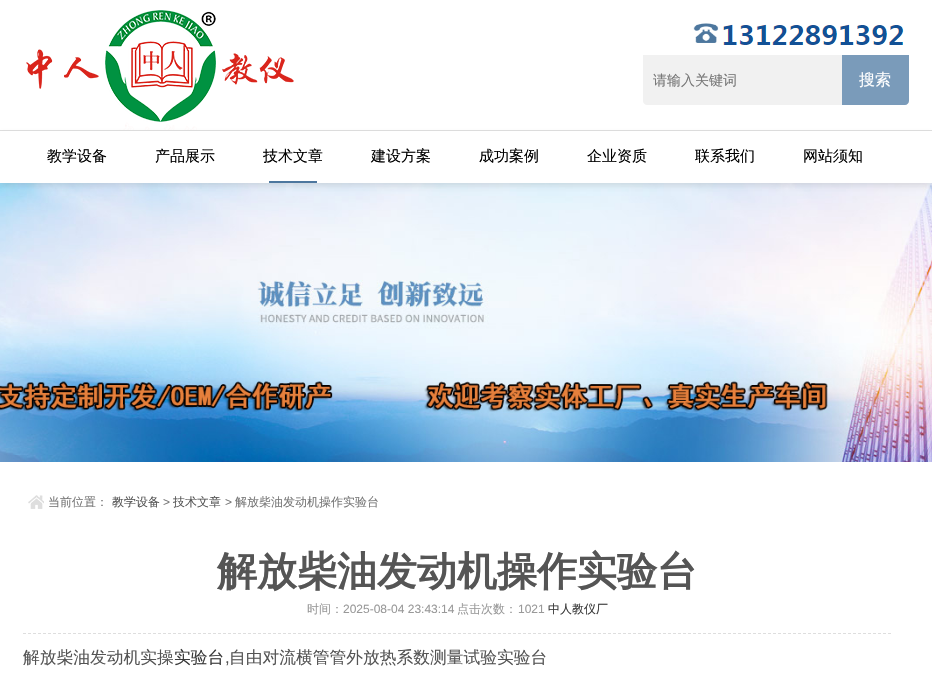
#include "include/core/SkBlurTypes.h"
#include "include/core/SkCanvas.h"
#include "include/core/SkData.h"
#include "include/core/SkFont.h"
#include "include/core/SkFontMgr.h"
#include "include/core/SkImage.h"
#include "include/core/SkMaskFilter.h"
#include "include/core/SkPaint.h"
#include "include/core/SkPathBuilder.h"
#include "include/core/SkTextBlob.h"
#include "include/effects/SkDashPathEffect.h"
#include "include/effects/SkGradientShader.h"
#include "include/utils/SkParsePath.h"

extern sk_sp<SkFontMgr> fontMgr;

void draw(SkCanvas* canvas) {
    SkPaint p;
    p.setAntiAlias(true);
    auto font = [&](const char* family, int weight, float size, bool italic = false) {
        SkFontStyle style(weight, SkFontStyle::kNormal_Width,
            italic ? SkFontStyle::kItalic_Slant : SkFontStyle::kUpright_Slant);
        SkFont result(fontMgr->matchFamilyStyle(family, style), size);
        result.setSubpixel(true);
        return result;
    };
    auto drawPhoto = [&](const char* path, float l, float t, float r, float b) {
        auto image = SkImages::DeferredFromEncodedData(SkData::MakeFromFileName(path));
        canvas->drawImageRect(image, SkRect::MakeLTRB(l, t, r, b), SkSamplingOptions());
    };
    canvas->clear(0xFFFFFFFF);
    p.setColor(0xFFDEDEDE);
    canvas->drawRect(SkRect::MakeLTRB(0, 130, 932, 131), p);
    drawPhoto("media/1.png", 26, 10, 294, 130);
    drawPhoto("media/2.png", 693, 23, 719, 43);
    drawPhoto("media/3.png", 723, 24, 904, 45);
    p.setColor(0xFFF1F1F1);
    canvas->drawPath(SkPathBuilder().moveTo(643, 55).lineTo(842, 55).lineTo(842, 105).lineTo(647, 105).cubicTo(645, 105, 643, 103, 643, 101).close().detach(), p);
    auto font1 = font("WenQuanYi Zen Hei", 500, 14);
    p.setColor(0xFF777777);
    canvas->drawString("请输入关键词", 653, 85, font1, p);
    p.setColor(0xFF7A9BBA);
    canvas->drawPath(SkPathBuilder().moveTo(842, 55).lineTo(909, 55).lineTo(909, 101).cubicTo(909, 103, 907, 105, 905, 105).lineTo(842, 105).close().detach(), p);
    auto font2 = font("WenQuanYi Zen Hei", 500, 16);
    p.setColor(0xFFFFFFFF);
    canvas->drawString("搜索", 859, 85, font2, p);
    drawPhoto("media/4.png", 0, 183, 932, 462);
    p.setColor(0x337F7F7F);
    p.setMaskFilter(SkMaskFilter::MakeBlur(kNormal_SkBlurStyle, 3));
    canvas->drawRect(SkRect::MakeLTRB(0, 134, 932, 186), p);
    p.setMaskFilter(nullptr);
    p.setColor(0xFFFFFFFF);
    canvas->drawRect(SkRect::MakeLTRB(0, 131, 932, 183), p);
    auto font3 = font("WenQuanYi Zen Hei", 500, 15);
    p.setColor(0xFF000000);
    {
        const struct { const char* s; float x, y; } items[] = {
            {"教学设备", 47, 161},
            {"产品展示", 155, 161},
            {"技术文章", 263, 161},
        };
        for (auto [s, x, y] : items) {
            canvas->drawString(s, x, y, font3, p);
        }
    }
    p.setColor(0xFF4D779E);
    canvas->drawRect(SkRect::MakeLTRB(269, 181, 317, 183), p);
    p.setColor(0xFF000000);
    {
        const struct { const char* s; float x, y; } items[] = {
            {"建设方案", 371, 161},
            {"成功案例", 479, 161},
            {"企业资质", 587, 161},
            {"联系我们", 695, 161},
            {"网站须知", 803, 161},
        };
        for (auto [s, x, y] : items) {
            canvas->drawString(s, x, y, font3, p);
        }
    }
    drawPhoto("media/5.png", 28, 495, 44, 509);
    auto font4 = font("WenQuanYi Zen Hei", 500, 12);
    p.setColor(0xFF777777);
    canvas->drawString("当前位置：", 48, 506, font4, p);
    p.setColor(0xFF555555);
    canvas->drawString("教学设备", 112, 506, font4, p);
    auto font5 = font("Liberation Sans", 400, 12);
    p.setColor(0xFF777777);
    canvas->drawString(">", 163, 506, font5, p);
    p.setColor(0xFF555555);
    canvas->drawString("技术文章", 173, 506, font4, p);
    p.setColor(0xFF777777);
    canvas->drawString(">", 225, 506, font5, p);
    canvas->drawString("解放柴油发动机操作实验台", 235, 506, font4, p);
    auto font6 = font("WenQuanYi Zen Hei", 700, 40);
    p.setColor(0xFF555555);
    canvas->drawString("解放柴油发动机操作实验台", 217, 585, font6, p);
    p.setStyle(SkPaint::kStroke_Style);
    p.setStrokeWidth(1);
    p.setColor(0xFFDEDEDE);
    p.setPathEffect(SkDashPathEffect::Make({{3, 2}}, 0));
    canvas->drawPath(SkPathBuilder().moveTo(23, 633.5f).lineTo(891, 633.5f).detach(), p);
    p.setPathEffect(nullptr);
    p.setStyle(SkPaint::kFill_Style);
    p.setColor(0xFF999999);
    canvas->drawString("时间：", 307, 613, font4, p);
    canvas->drawString("2025-08-04 23:43:14", 343, 613, font5, p);
    canvas->drawString("点击次数：", 457, 613, font4, p);
    canvas->drawString("1021", 518, 613, font5, p);
    p.setColor(0xFF3A3A3A);
    canvas->drawString("中人教仪厂", 548, 613, font4, p);
    auto font7 = font("WenQuanYi Zen Hei", 500, 16.75f);
    p.setColor(0xFF555555);
    canvas->drawString("解放柴油发动机实操", 23, 663, font7, p);
    p.setColor(0xFF3A3A3A);
    canvas->drawString("实验台", 174, 663, font7, p);
    auto font8 = font("Liberation Sans", 400, 16.75f);
    p.setColor(0xFF555555);
    canvas->drawString(",", 225, 663, font8, p);
    canvas->drawString("自由对流横管管外放热系数测量试验实验台", 229, 663, font7, p);
}
